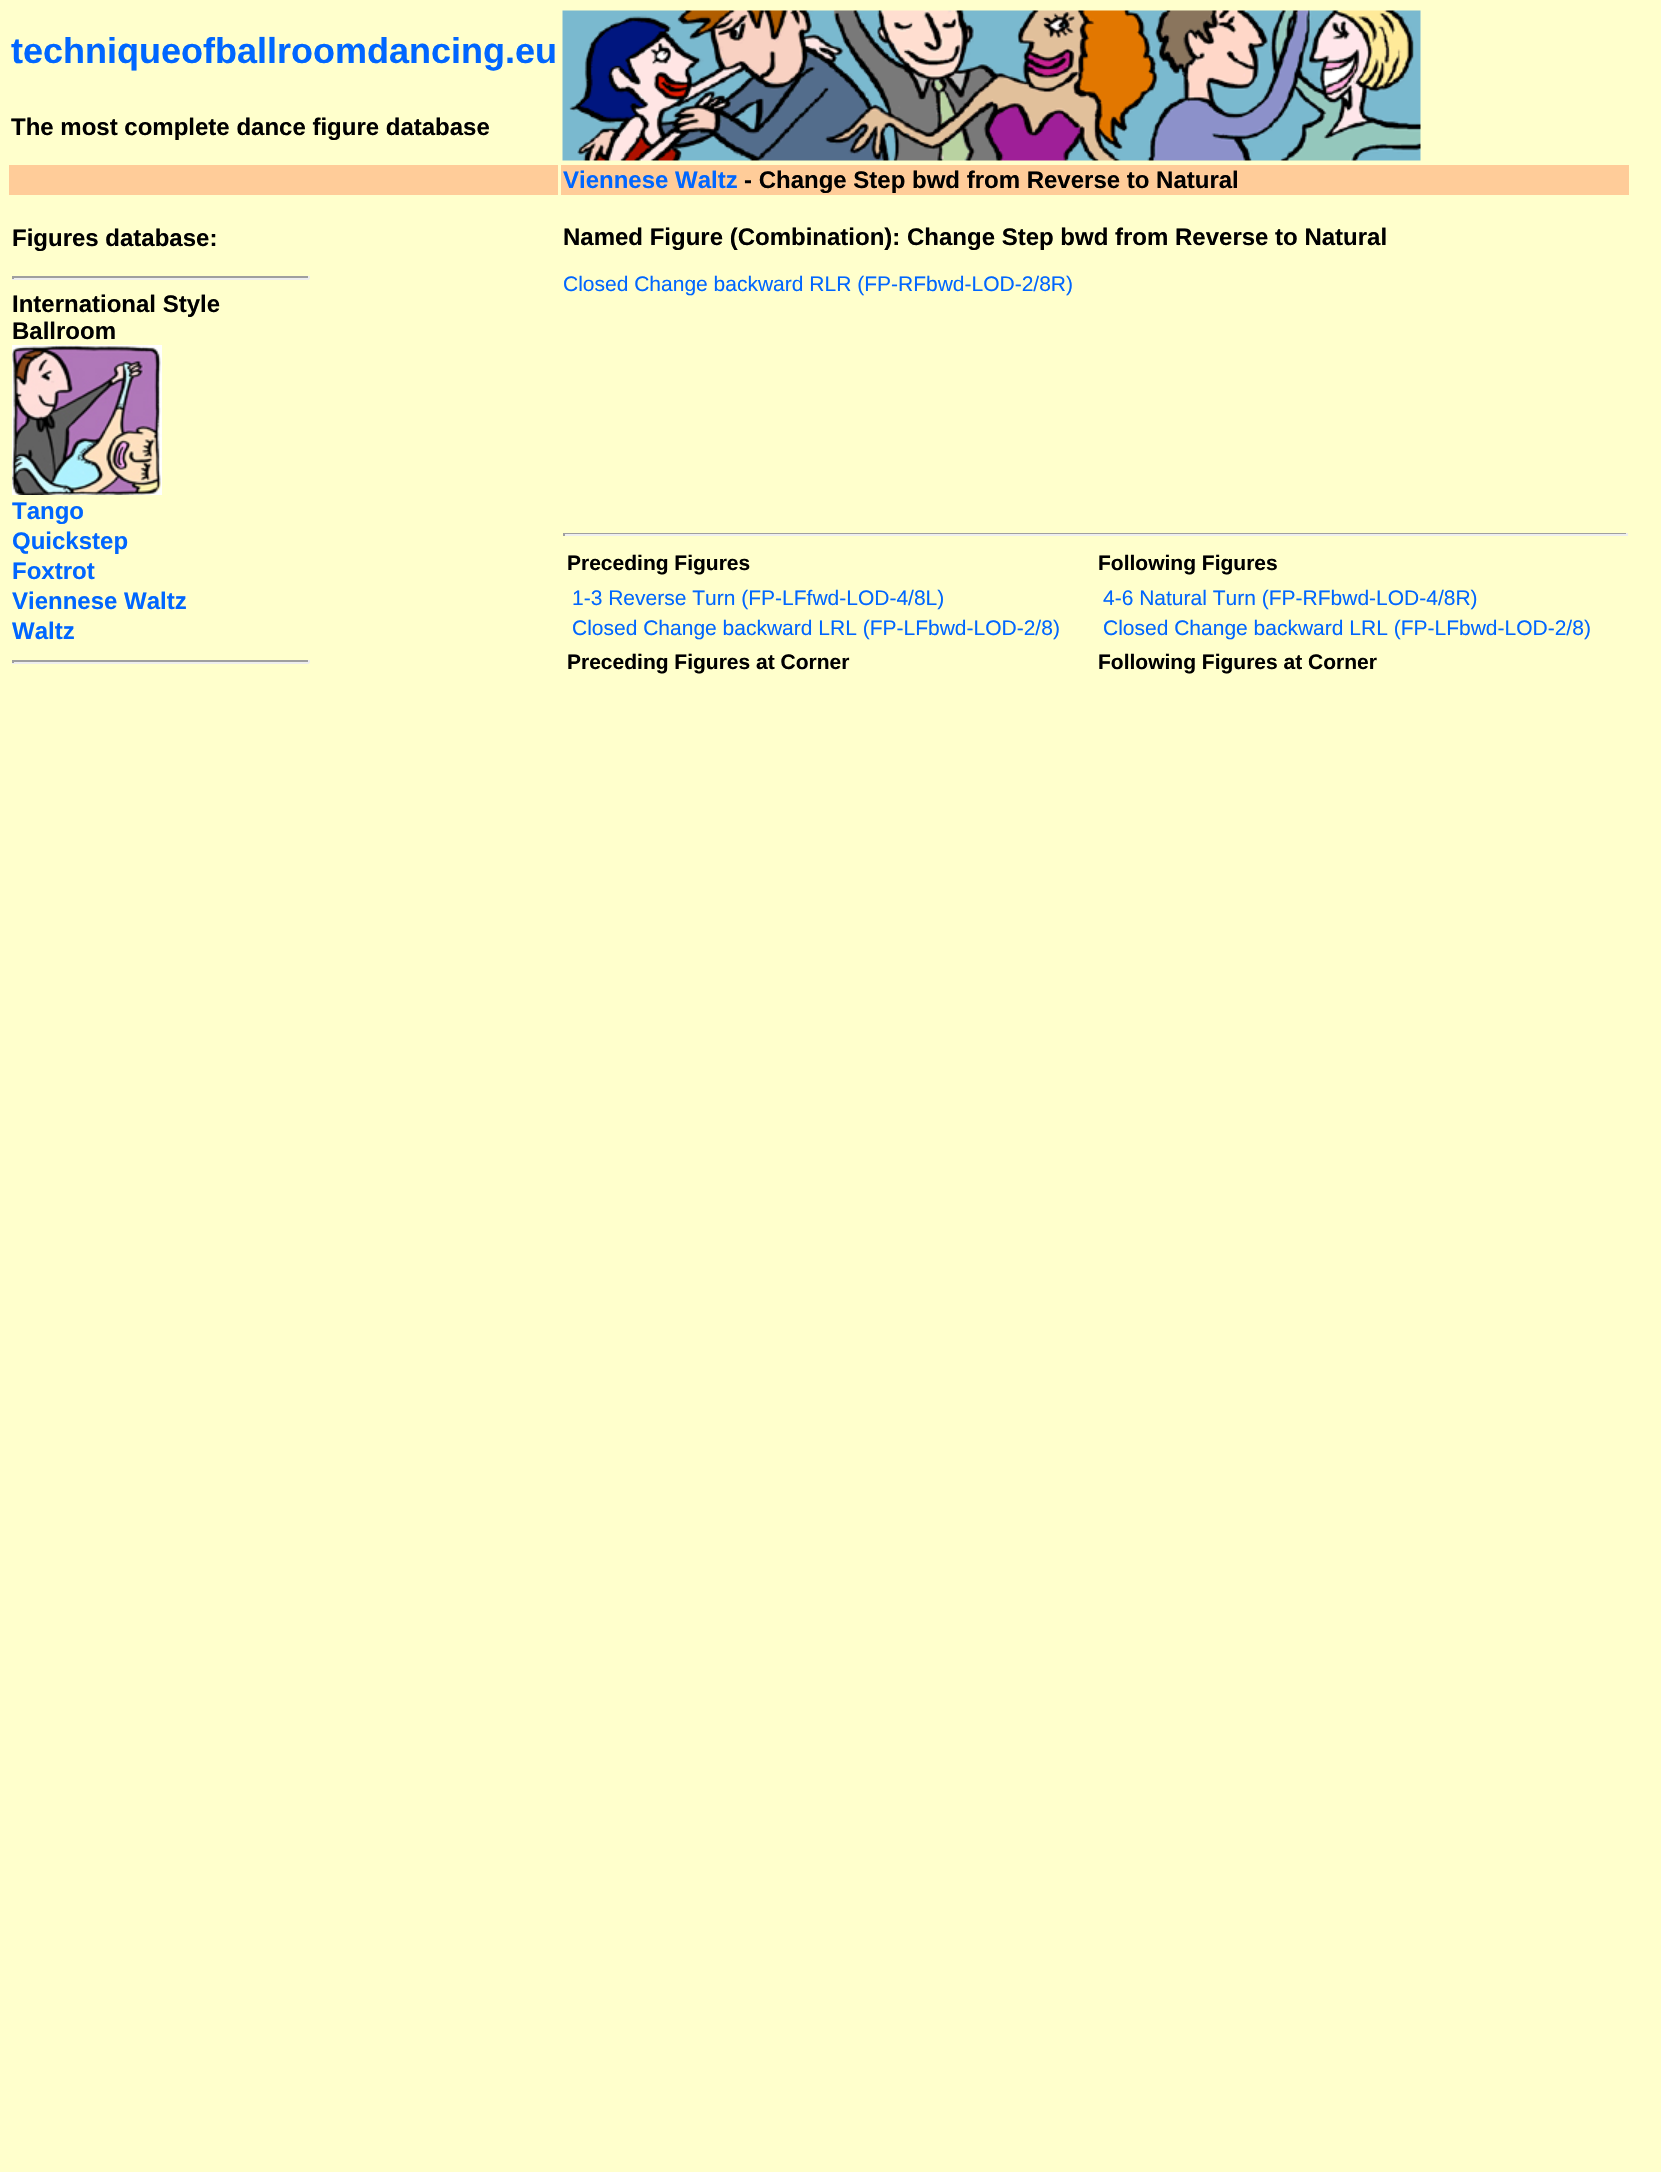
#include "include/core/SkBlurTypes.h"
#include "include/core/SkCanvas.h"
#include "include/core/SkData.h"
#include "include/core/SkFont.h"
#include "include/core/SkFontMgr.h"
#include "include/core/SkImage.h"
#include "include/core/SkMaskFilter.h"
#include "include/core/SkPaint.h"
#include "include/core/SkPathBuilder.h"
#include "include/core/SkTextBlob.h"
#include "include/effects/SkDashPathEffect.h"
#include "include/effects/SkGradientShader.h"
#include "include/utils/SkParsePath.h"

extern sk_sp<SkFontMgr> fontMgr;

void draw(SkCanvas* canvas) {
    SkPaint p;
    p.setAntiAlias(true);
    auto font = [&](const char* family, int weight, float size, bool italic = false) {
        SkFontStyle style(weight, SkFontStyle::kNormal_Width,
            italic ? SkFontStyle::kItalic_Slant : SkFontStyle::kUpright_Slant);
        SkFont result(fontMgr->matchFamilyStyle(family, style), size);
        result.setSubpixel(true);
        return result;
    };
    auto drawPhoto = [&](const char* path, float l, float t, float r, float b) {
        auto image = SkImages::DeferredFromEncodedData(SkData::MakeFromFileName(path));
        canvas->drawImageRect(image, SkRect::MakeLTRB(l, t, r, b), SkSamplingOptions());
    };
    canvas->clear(0xFFFFFFCC);
    auto font1 = font("Liberation Sans", 700, 36);
    p.setColor(0xFF0066FF);
    canvas->drawString("techniqueofballroomdancing.eu", 11, 63, font1, p);
    auto font2 = font("Liberation Sans", 700, 24);
    p.setColor(0xFF000000);
    canvas->drawString("The most complete dance figure database", 11, 135, font2, p);
    drawPhoto("media/1.png", 562, 10, 1421, 161);
    p.setColor(0xFFFFCC99);
    canvas->drawRect(SkRect::MakeLTRB(9, 165, 558, 195), p);
    canvas->drawRect(SkRect::MakeLTRB(561, 165, 1629, 195), p);
    p.setColor(0xFF0066FF);
    canvas->drawString("Viennese Waltz", 563, 188, font2, p);
    p.setColor(0xFF000000);
    canvas->drawString("- Change Step bwd from Reverse to Natural", 744, 188, font2, p);
    canvas->drawString("Figures database:", 12, 246, font2, p);
    {
        const struct { float l, t, r, b; SkColor color; } items[] = {
            {12, 276, 309, 278, 0xFF9F9F9F},
            {308, 276, 310, 279, 0xFFEEEEEE},
            {12, 278, 309, 280, 0xFFEEEEEE},
            {12, 276, 14, 279, 0xFF9F9F9F},
        };
        for (auto [l, t, r, b, color] : items) {
            p.setColor(color);
            canvas->drawRect(SkRect::MakeLTRB(l, t, r, b), p);
        }
    }
    p.setColor(0xFF000000);
    canvas->drawString("International Style", 12, 312, font2, p);
    canvas->drawString("Ballroom", 12, 339, font2, p);
    drawPhoto("media/2.png", 12, 345, 162, 495);
    p.setColor(0xFF0066FF);
    {
        const struct { const char* s; float x, y; } items[] = {
            {"Tango", 12, 519},
            {"Quickstep", 12, 549},
            {"Foxtrot", 12, 579},
            {"Viennese Waltz", 12, 609},
            {"Waltz", 12, 639},
        };
        for (auto [s, x, y] : items) {
            canvas->drawString(s, x, y, font2, p);
        }
    }
    {
        const struct { float l, t, r, b; SkColor color; } items[] = {
            {12, 660, 309, 662, 0xFF9F9F9F},
            {308, 660, 310, 663, 0xFFEEEEEE},
            {12, 662, 309, 664, 0xFFEEEEEE},
            {12, 660, 14, 663, 0xFF9F9F9F},
        };
        for (auto [l, t, r, b, color] : items) {
            p.setColor(color);
            canvas->drawRect(SkRect::MakeLTRB(l, t, r, b), p);
        }
    }
    p.setColor(0xFF000000);
    canvas->drawString("Named Figure (Combination): Change Step bwd from Reverse to Natural", 563, 245, font2, p);
    auto font3 = font("Liberation Sans", 400, 21);
    p.setColor(0xFF0066FF);
    canvas->drawString("Closed Change backward RLR (FP-RFbwd-LOD-2/8R)", 563, 291, font3, p);
    {
        const struct { float l, t, r, b; SkColor color; } items[] = {
            {563, 533, 1628, 534, 0xFF9F9F9F},
            {1626, 533, 1628, 536, 0xFFEEEEEE},
            {563, 534, 1628, 536, 0xFFEEEEEE},
            {563, 533, 565, 536, 0xFF9F9F9F},
        };
        for (auto [l, t, r, b, color] : items) {
            p.setColor(color);
            canvas->drawRect(SkRect::MakeLTRB(l, t, r, b), p);
        }
    }
    auto font4 = font("Liberation Sans", 700, 21);
    p.setColor(0xFF000000);
    canvas->drawString("Preceding Figures", 567, 570, font4, p);
    canvas->drawString("Following Figures", 1098, 570, font4, p);
    p.setColor(0xFF0066FF);
    {
        const struct { const char* s; float x, y; } items[] = {
            {"1-3 Reverse Turn (FP-LFfwd-LOD-4/8L)", 572, 605},
            {"Closed Change backward LRL (FP-LFbwd-LOD-2/8)", 572, 635},
            {"4-6 Natural Turn (FP-RFbwd-LOD-4/8R)", 1103, 605},
            {"Closed Change backward LRL (FP-LFbwd-LOD-2/8)", 1103, 635},
        };
        for (auto [s, x, y] : items) {
            canvas->drawString(s, x, y, font3, p);
        }
    }
    p.setColor(0xFF000000);
    canvas->drawString("Preceding Figures at Corner", 567, 669, font4, p);
    canvas->drawString("Following Figures at Corner", 1098, 669, font4, p);
}
